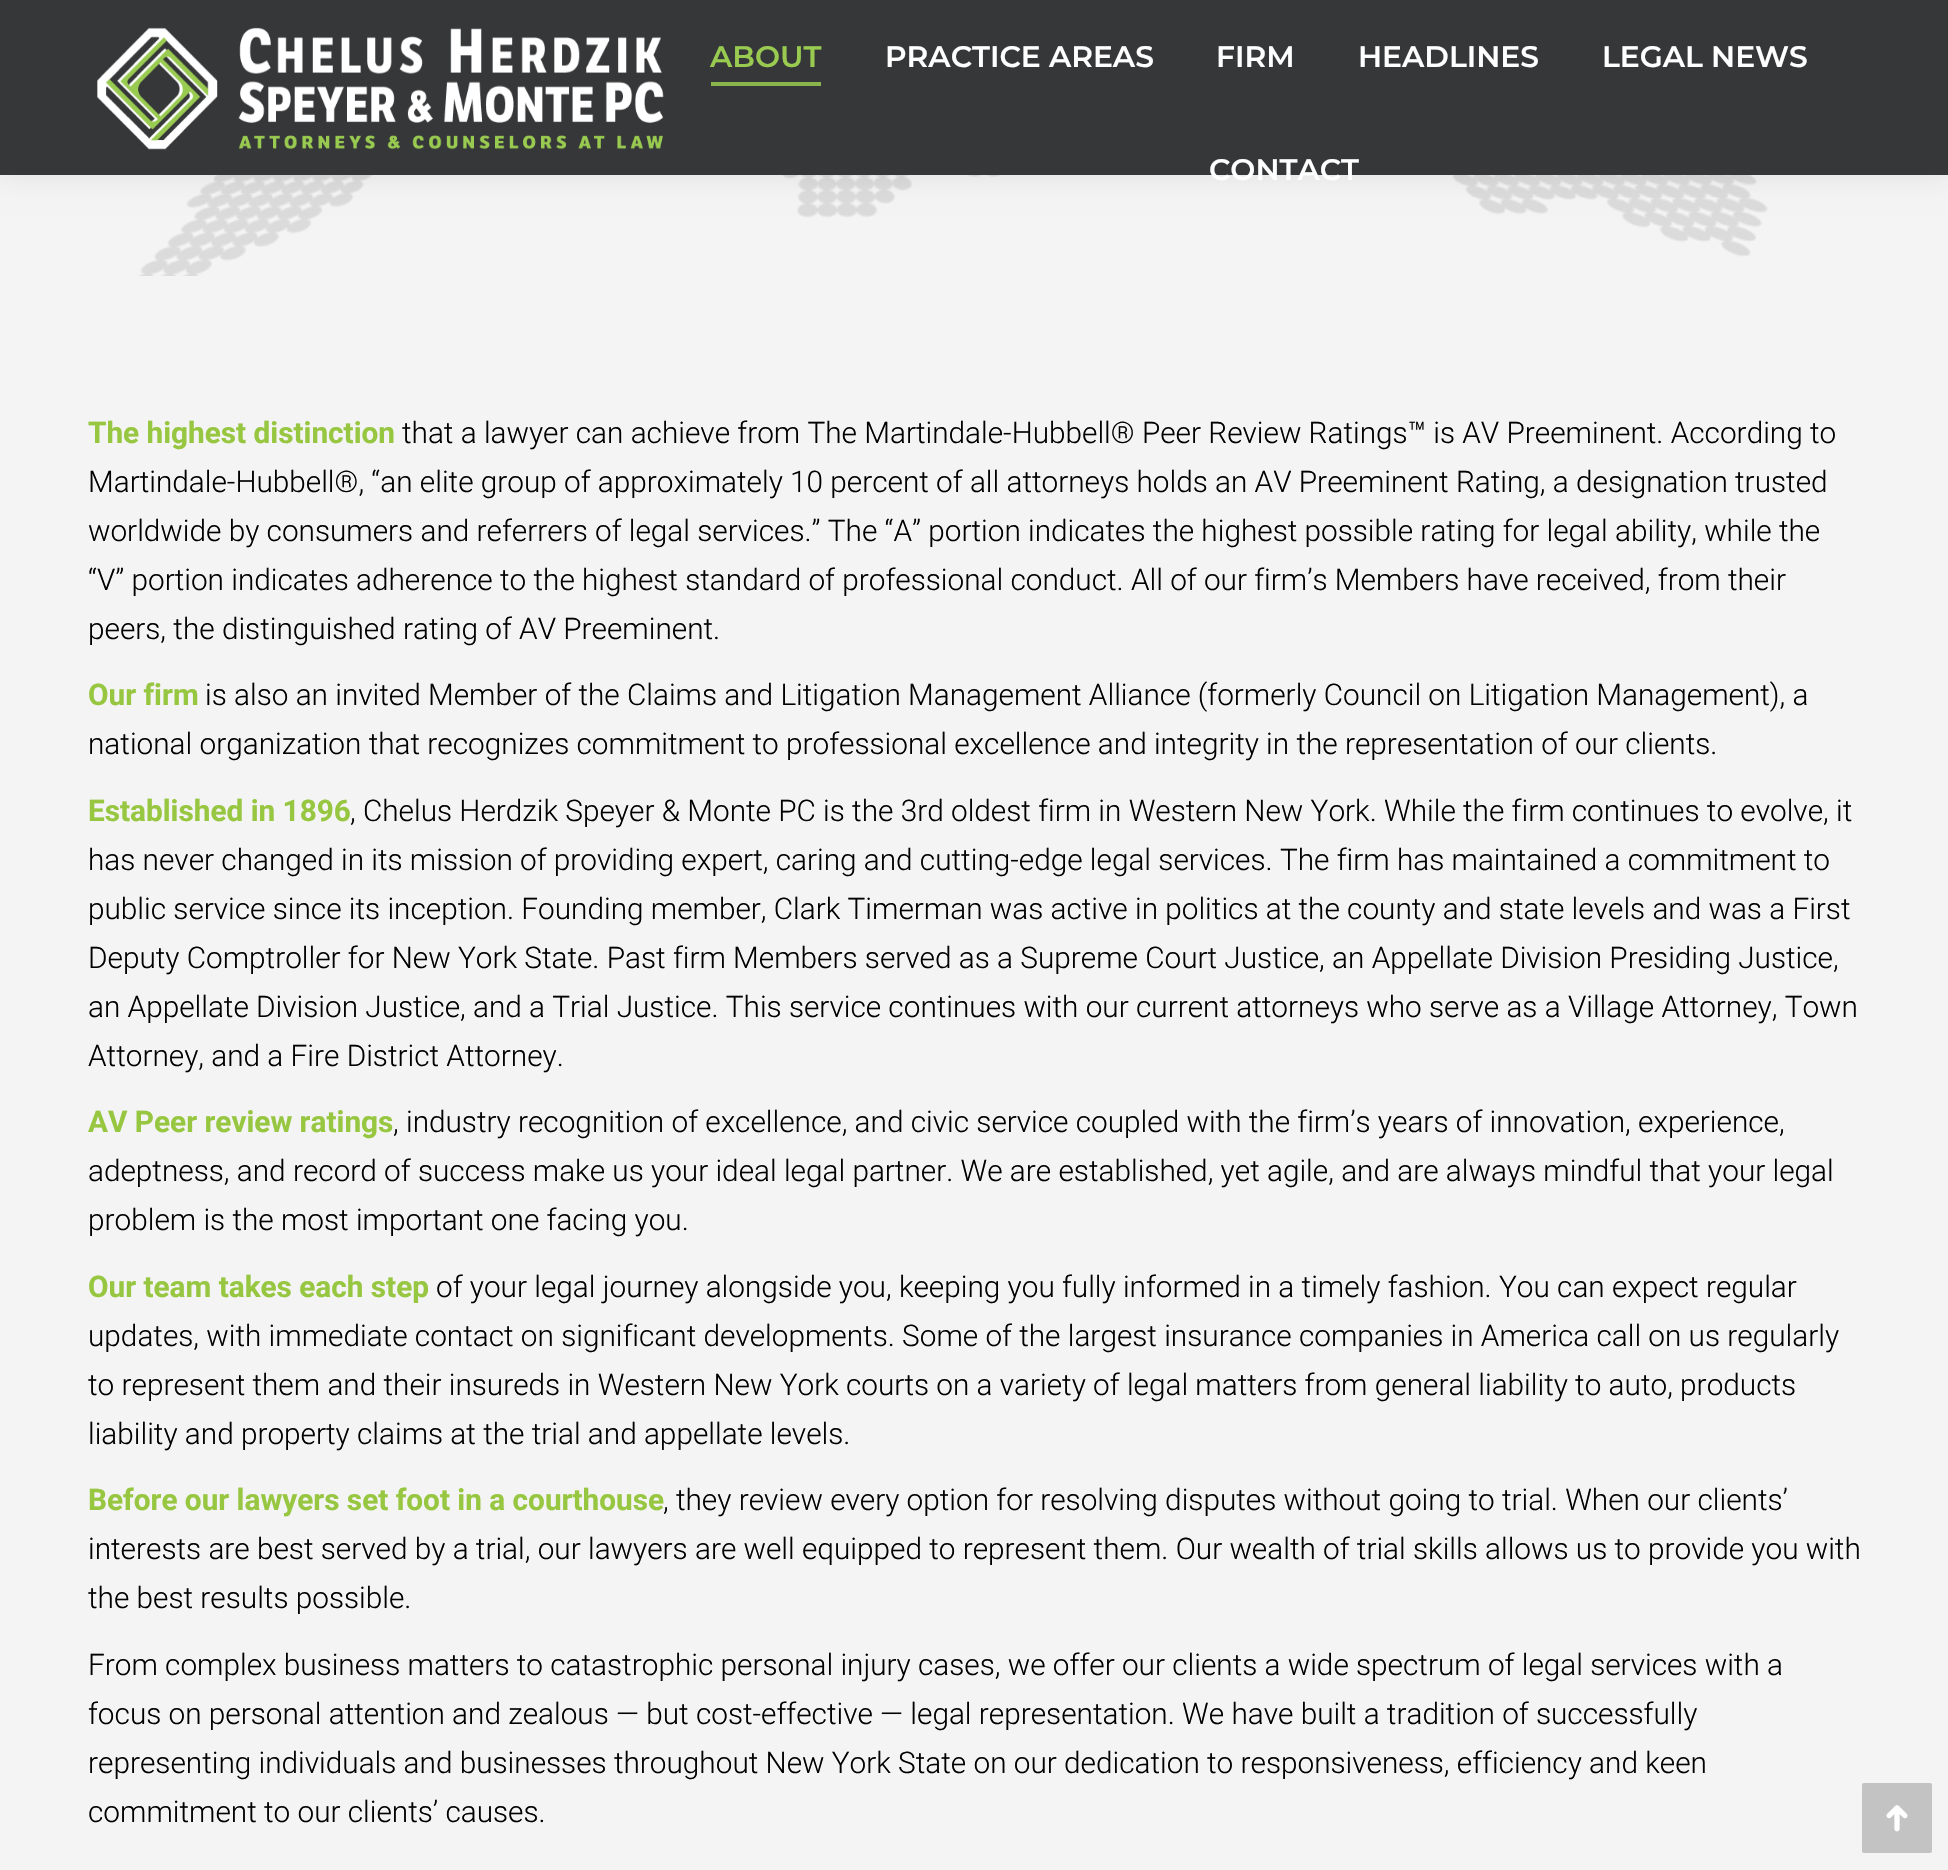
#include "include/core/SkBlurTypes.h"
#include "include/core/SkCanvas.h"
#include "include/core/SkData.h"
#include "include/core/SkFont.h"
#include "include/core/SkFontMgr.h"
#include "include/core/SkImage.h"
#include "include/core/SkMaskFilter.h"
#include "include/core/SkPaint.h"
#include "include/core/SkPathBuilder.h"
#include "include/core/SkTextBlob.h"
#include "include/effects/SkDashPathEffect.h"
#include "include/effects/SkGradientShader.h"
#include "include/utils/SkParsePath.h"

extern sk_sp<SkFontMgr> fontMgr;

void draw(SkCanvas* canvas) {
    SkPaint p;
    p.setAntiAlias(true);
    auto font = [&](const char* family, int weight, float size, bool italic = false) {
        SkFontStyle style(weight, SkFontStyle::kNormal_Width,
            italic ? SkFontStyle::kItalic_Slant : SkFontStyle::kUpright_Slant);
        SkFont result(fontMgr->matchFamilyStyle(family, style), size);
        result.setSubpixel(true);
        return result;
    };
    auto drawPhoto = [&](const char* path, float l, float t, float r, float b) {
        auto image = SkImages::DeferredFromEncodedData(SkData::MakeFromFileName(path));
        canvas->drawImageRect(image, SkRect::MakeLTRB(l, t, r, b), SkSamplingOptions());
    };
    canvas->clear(0xFFF4F4F4);
    drawPhoto("media/2.png", 139, 175, 1768, 276);
    p.setColor(0x12000000);
    p.setMaskFilter(SkMaskFilter::MakeBlur(kNormal_SkBlurStyle, 13));
    canvas->drawRect(SkRect::MakeLTRB(-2, -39, 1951, 177), p);
    p.setMaskFilter(nullptr);
    p.setColor(0xFF363739);
    canvas->drawRect(SkRect::MakeLTRB(0, 0, 1948, 175), p);
    drawPhoto("media/1.png", 97, 27, 664, 150);
    auto font1 = font("Montserrat", 600, 29.75f);
    p.setColor(0xFF99CB51);
    canvas->drawString("ABOUT", 710, 67, font1, p);
    p.setColor(0xFF8AB54D);
    canvas->drawRect(SkRect::MakeLTRB(711, 82, 821, 86), p);
    p.setColor(0xFFFFFFFF);
    {
        const struct { const char* s; float x, y; } items[] = {
            {"PRACTICE AREAS", 885, 67},
            {"FIRM", 1216, 67},
            {"HEADLINES", 1358, 67},
            {"LEGAL NEWS", 1602, 67},
            {"CONTACT", 1209, 180},
        };
        for (auto [s, x, y] : items) {
            canvas->drawString(s, x, y, font1, p);
        }
    }
    auto font2 = font("Roboto", 700, 29.75f);
    p.setColor(0xFF97C640);
    canvas->drawString("The highest distinction", 88, 443, font2, p);
    auto font3 = font("Roboto", 300, 29.75f);
    p.setColor(0xFF000000);
    {
        const struct { const char* s; float x, y; } items[] = {
            {"that a lawyer can achieve from The Martindale-Hubbell® Peer Review Ratings™ is AV Preeminent. According to", 402, 443},
            {"Martindale-Hubbell®, “an elite group of approximately 10 percent of all attorneys holds an AV Preeminent Rating, a designation trusted", 88, 492},
            {"worldwide by consumers and referrers of legal services.” The “A” portion indicates the highest possible rating for legal ability, while the", 88, 541},
            {"“V” portion indicates adherence to the highest standard of professional conduct. All of our firm’s Members have received, from their", 88, 590},
            {"peers, the distinguished rating of AV Preeminent.", 88, 639},
        };
        for (auto [s, x, y] : items) {
            canvas->drawString(s, x, y, font3, p);
        }
    }
    p.setColor(0xFF97C640);
    canvas->drawString("Our firm", 88, 705, font2, p);
    p.setColor(0xFF000000);
    canvas->drawString("is also an invited Member of the Claims and Litigation Management Alliance (formerly Council on Litigation Management), a", 205, 705, font3, p);
    canvas->drawString("national organization that recognizes commitment to professional excellence and integrity in the representation of our clients.", 88, 754, font3, p);
    p.setColor(0xFF97C640);
    canvas->drawString("Established in 1896", 88, 821, font2, p);
    p.setColor(0xFF000000);
    {
        const struct { const char* s; float x, y; } items[] = {
            {", Chelus Herdzik Speyer & Monte PC is the 3rd oldest firm in Western New York. While the firm continues to evolve, it", 350, 821},
            {"has never changed in its mission of providing expert, caring and cutting-edge legal services. The firm has maintained a commitment to", 88, 870},
            {"public service since its inception. Founding member, Clark Timerman was active in politics at the county and state levels and was a First", 88, 919},
            {"Deputy Comptroller for New York State. Past firm Members served as a Supreme Court Justice, an Appellate Division Presiding Justice,", 88, 968},
            {"an Appellate Division Justice, and a Trial Justice. This service continues with our current attorneys who serve as a Village Attorney, Town", 88, 1017},
            {"Attorney, and a Fire District Attorney.", 88, 1066},
        };
        for (auto [s, x, y] : items) {
            canvas->drawString(s, x, y, font3, p);
        }
    }
    p.setColor(0xFF97C640);
    canvas->drawString("AV Peer review ratings", 88, 1132, font2, p);
    p.setColor(0xFF000000);
    {
        const struct { const char* s; float x, y; } items[] = {
            {", industry recognition of excellence, and civic service coupled with the firm’s years of innovation, experience,", 393, 1132},
            {"adeptness, and record of success make us your ideal legal partner. We are established, yet agile, and are always mindful that your legal", 88, 1181},
            {"problem is the most important one facing you.", 88, 1230},
        };
        for (auto [s, x, y] : items) {
            canvas->drawString(s, x, y, font3, p);
        }
    }
    p.setColor(0xFF97C640);
    canvas->drawString("Our team takes each step", 88, 1297, font2, p);
    p.setColor(0xFF000000);
    {
        const struct { const char* s; float x, y; } items[] = {
            {"of your legal journey alongside you, keeping you fully informed in a timely fashion. You can expect regular", 436, 1297},
            {"updates, with immediate contact on significant developments. Some of the largest insurance companies in America call on us regularly", 88, 1346},
            {"to represent them and their insureds in Western New York courts on a variety of legal matters from general liability to auto, products", 88, 1395},
            {"liability and property claims at the trial and appellate levels.", 88, 1444},
        };
        for (auto [s, x, y] : items) {
            canvas->drawString(s, x, y, font3, p);
        }
    }
    p.setColor(0xFF97C640);
    canvas->drawString("Before our lawyers set foot in a courthouse", 88, 1510, font2, p);
    p.setColor(0xFF000000);
    {
        const struct { const char* s; float x, y; } items[] = {
            {", they review every option for resolving disputes without going to trial. When our clients’", 663, 1510},
            {"interests are best served by a trial, our lawyers are well equipped to represent them. Our wealth of trial skills allows us to provide you with", 88, 1559},
            {"the best results possible.", 88, 1608},
            {"From complex business matters to catastrophic personal injury cases, we offer our clients a wide spectrum of legal services with a", 88, 1675},
            {"focus on personal attention and zealous — but cost-effective — legal representation. We have built a tradition of successfully", 88, 1724},
            {"representing individuals and businesses throughout New York State on our dedication to responsiveness, efficiency and keen", 88, 1773},
            {"commitment to our clients’ causes.", 88, 1822},
        };
        for (auto [s, x, y] : items) {
            canvas->drawString(s, x, y, font3, p);
        }
    }
    p.setColor(0xFFC3C3C3);
    canvas->drawRoundRect(SkRect::MakeLTRB(1862, 1783, 1932, 1853), 2, 2, p);
    drawPhoto("media/3.png", 1886, 1805, 1908, 1832);
}
